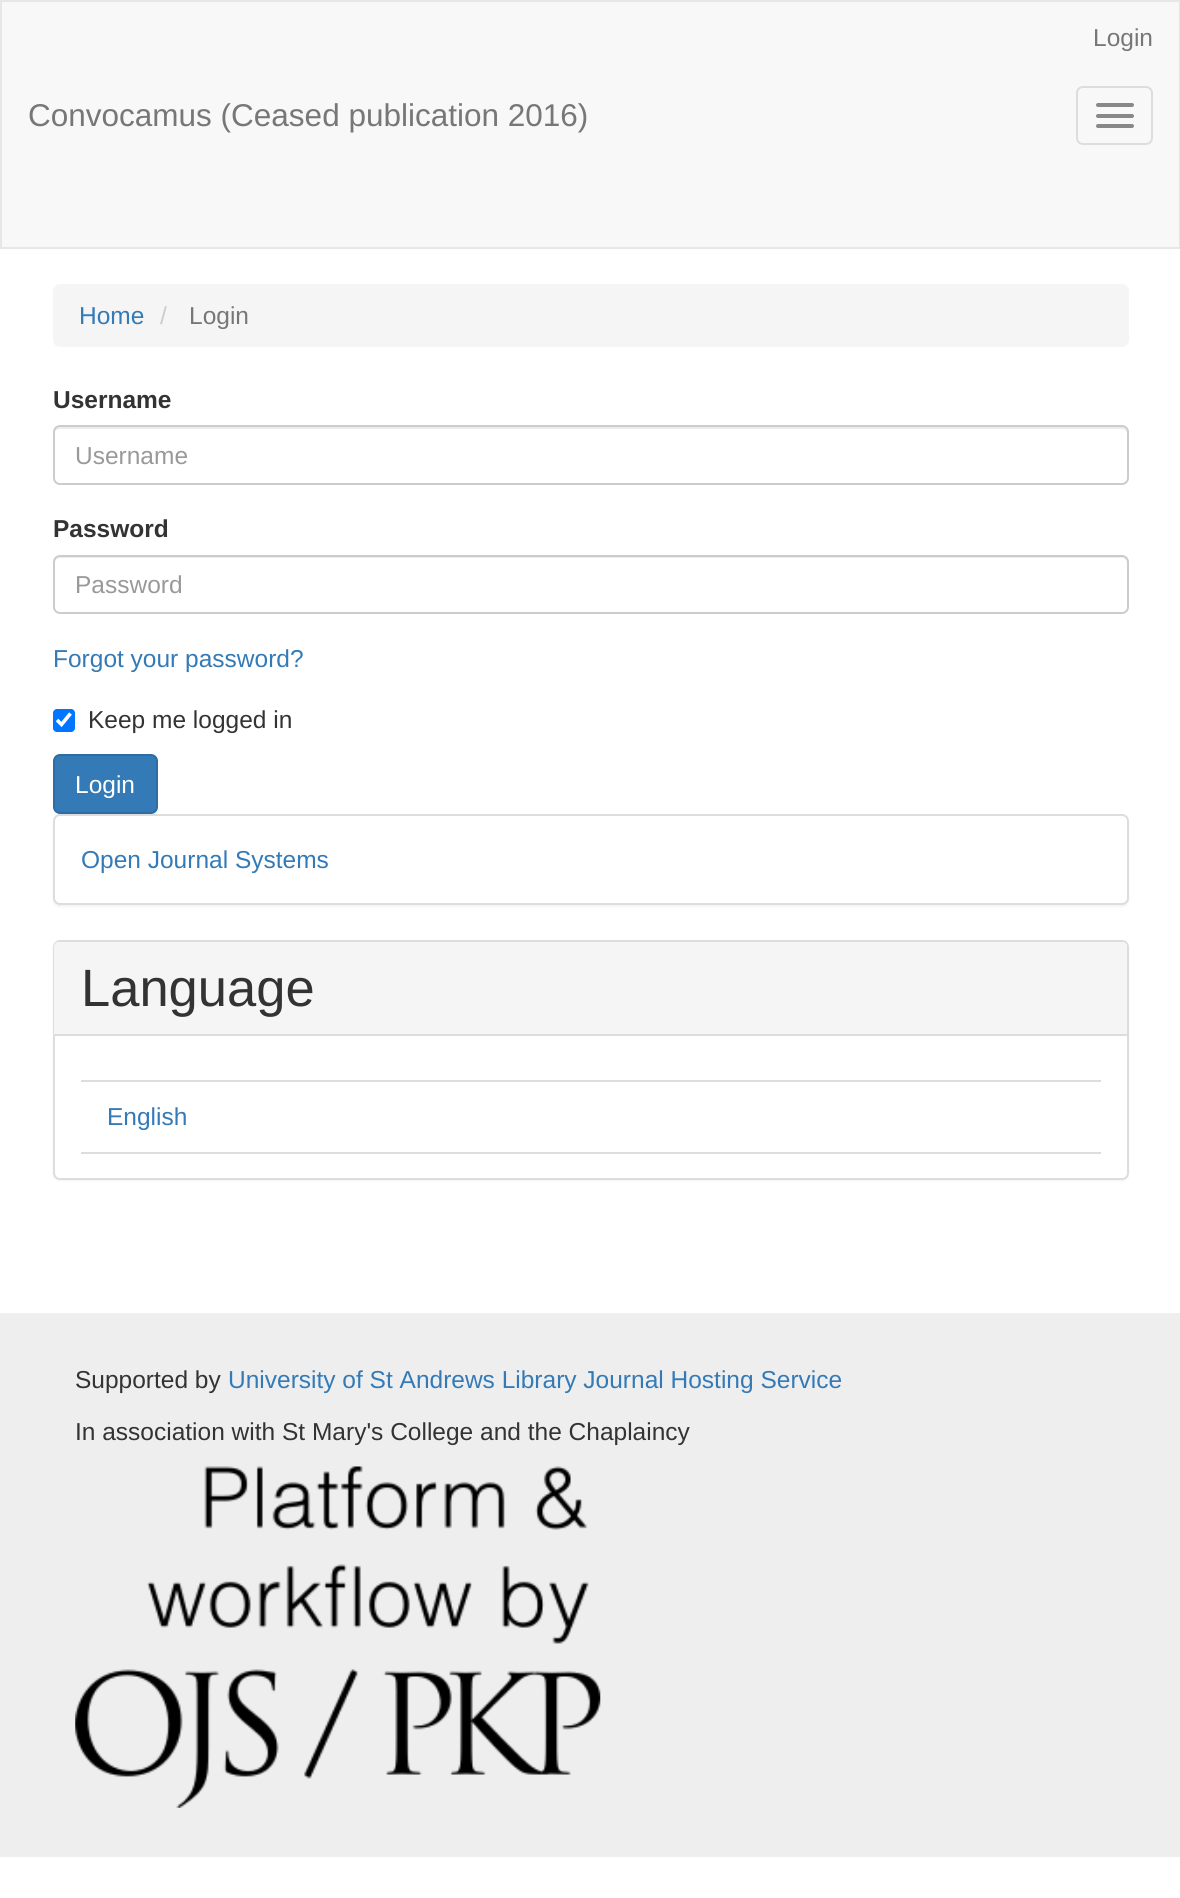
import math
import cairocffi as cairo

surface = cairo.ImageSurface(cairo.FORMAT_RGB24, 1180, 1898)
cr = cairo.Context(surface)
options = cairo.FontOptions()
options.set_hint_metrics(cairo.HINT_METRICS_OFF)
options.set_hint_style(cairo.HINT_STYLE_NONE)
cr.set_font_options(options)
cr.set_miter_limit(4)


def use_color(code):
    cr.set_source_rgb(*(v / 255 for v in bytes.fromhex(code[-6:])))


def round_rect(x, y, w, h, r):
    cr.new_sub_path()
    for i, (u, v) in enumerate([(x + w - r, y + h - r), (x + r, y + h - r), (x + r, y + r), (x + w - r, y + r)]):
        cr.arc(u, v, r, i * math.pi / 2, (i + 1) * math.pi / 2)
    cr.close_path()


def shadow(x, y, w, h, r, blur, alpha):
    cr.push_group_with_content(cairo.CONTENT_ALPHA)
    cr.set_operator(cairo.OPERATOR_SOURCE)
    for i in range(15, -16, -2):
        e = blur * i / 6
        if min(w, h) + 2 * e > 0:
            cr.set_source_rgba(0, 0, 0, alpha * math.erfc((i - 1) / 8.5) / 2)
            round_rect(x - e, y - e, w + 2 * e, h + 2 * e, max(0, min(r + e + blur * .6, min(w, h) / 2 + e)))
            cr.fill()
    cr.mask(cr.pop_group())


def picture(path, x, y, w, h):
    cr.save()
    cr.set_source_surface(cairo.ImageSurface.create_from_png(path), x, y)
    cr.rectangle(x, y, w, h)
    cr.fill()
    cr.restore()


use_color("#ffffff")
cr.paint()
use_color("#f8f8f8")
cr.rectangle(1, 1, 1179, 247)
cr.fill_preserve()
use_color("#e7e7e7")
cr.stroke()
cr.select_font_face("Liberation Sans")
cr.set_font_size(24.5)
use_color("#777777")
cr.move_to(1093, 46)
cr.show_text("Login")
cr.set_font_size(31.5)
cr.move_to(28, 126)
cr.show_text("Convocamus (Ceased publication 2016)")
round_rect(1077, 87, 75, 57, 6)
use_color("#dddddd")
cr.stroke()
use_color("#888888")
round_rect(1096, 103, 38, 4, 2)
cr.fill()
round_rect(1096, 114, 38, 4, 2)
cr.fill()
round_rect(1096, 124, 38, 4, 2)
cr.fill()
use_color("#f5f5f5")
round_rect(53, 284, 1076, 63, 7)
cr.fill()
cr.set_font_size(24.5)
use_color("#337ab7")
cr.move_to(79, 324)
cr.show_text("Home")
use_color("#cccccc")
cr.move_to(160, 324)
cr.show_text("/")
use_color("#777777")
cr.move_to(189, 324)
cr.show_text("Login")
cr.select_font_face("Liberation Sans", cairo.FONT_SLANT_NORMAL, cairo.FONT_WEIGHT_BOLD)
use_color("#333333")
cr.move_to(53, 408)
cr.show_text("Username")
use_color("#ececec")
cr.new_path()
cr.move_to(60, 429)
cr.line_to(1122, 429)
cr.curve_to(1125, 429, 1127, 431, 1127, 434)
cr.line_to(1127, 432)
cr.curve_to(1127, 429, 1125, 427, 1122, 427)
cr.line_to(59, 427)
cr.curve_to(56, 427, 54, 429, 54, 432)
cr.line_to(54, 434)
cr.curve_to(54, 431, 57, 429, 60, 429)
cr.close_path()
cr.fill()
round_rect(54, 426, 1074, 58, 6)
use_color("#cccccc")
cr.stroke()
cr.select_font_face("Liberation Sans")
use_color("#999999")
cr.move_to(75, 464)
cr.show_text("Username")
cr.select_font_face("Liberation Sans", cairo.FONT_SLANT_NORMAL, cairo.FONT_WEIGHT_BOLD)
use_color("#333333")
cr.move_to(53, 537)
cr.show_text("Password")
use_color("#ececec")
cr.new_path()
cr.move_to(60, 558)
cr.line_to(1122, 558)
cr.curve_to(1125, 558, 1127, 561, 1127, 564)
cr.line_to(1127, 562)
cr.curve_to(1127, 559, 1125, 557, 1122, 557)
cr.line_to(59, 557)
cr.curve_to(56, 557, 54, 559, 54, 562)
cr.line_to(54, 564)
cr.curve_to(54, 561, 57, 558, 60, 558)
cr.close_path()
cr.fill()
round_rect(54, 556, 1074, 57, 6)
use_color("#cccccc")
cr.stroke()
cr.select_font_face("Liberation Sans")
use_color("#999999")
cr.move_to(75, 593)
cr.show_text("Password")
use_color("#337ab7")
cr.move_to(53, 667)
cr.show_text("Forgot your password?")
use_color("#0075ff")
round_rect(53, 709, 22, 23, 4)
cr.fill()
cr.new_path()
cr.move_to(57, 720)
cr.line_to(61.5, 724.5)
cr.line_to(70.5, 713.5)
use_color("#ffffff")
cr.set_line_width(3.6)
cr.stroke()
use_color("#333333")
cr.move_to(88, 728)
cr.show_text("Keep me logged in")
use_color("#337ab7")
round_rect(54, 755, 103, 58, 6)
cr.fill_preserve()
use_color("#2e6da4")
cr.set_line_width(2)
cr.stroke()
use_color("#ffffff")
cr.move_to(75, 793)
cr.show_text("Login")
use_color("#000000")
shadow(53, 816, 1076, 91, 7, 1, 0.05)
use_color("#ffffff")
round_rect(54, 815, 1074, 89, 6)
cr.fill_preserve()
use_color("#dddddd")
cr.stroke()
use_color("#337ab7")
cr.move_to(81, 868)
cr.show_text("Open Journal Systems")
use_color("#000000")
shadow(53, 942, 1076, 239, 7, 1, 0.05)
use_color("#ffffff")
round_rect(54, 941, 1074, 238, 6)
cr.fill_preserve()
use_color("#dddddd")
cr.stroke()
use_color("#f5f5f5")
cr.new_path()
cr.move_to(59, 942)
cr.line_to(1122, 942)
cr.curve_to(1125, 942, 1127, 944, 1127, 947)
cr.line_to(1127, 1036)
cr.line_to(54, 1036)
cr.line_to(54, 947)
cr.curve_to(54, 944, 56, 942, 59, 942)
cr.close_path()
cr.fill()
use_color("#dddddd")
cr.rectangle(54, 1034, 1073, 2)
cr.fill()
cr.set_font_size(52.5)
use_color("#333333")
cr.move_to(81, 1006)
cr.show_text("Language")
use_color("#dddddd")
cr.rectangle(81, 1080, 1020, 2)
cr.fill()
cr.rectangle(81, 1152, 1020, 2)
cr.fill()
cr.set_font_size(24.5)
use_color("#337ab7")
cr.move_to(107, 1125)
cr.show_text("English")
use_color("#eeeeee")
cr.rectangle(0, 1313, 1180, 544)
cr.fill()
use_color("#333333")
cr.move_to(75, 1388)
cr.show_text("Supported by")
use_color("#337ab7")
cr.move_to(228, 1388)
cr.show_text("University of St Andrews Library Journal Hosting Service")
use_color("#333333")
cr.move_to(75, 1440)
cr.show_text("In association with St Mary's College and the Chaplaincy")
picture("img1.png", 75, 1466, 526, 342)
surface.write_to_png("result.png")
